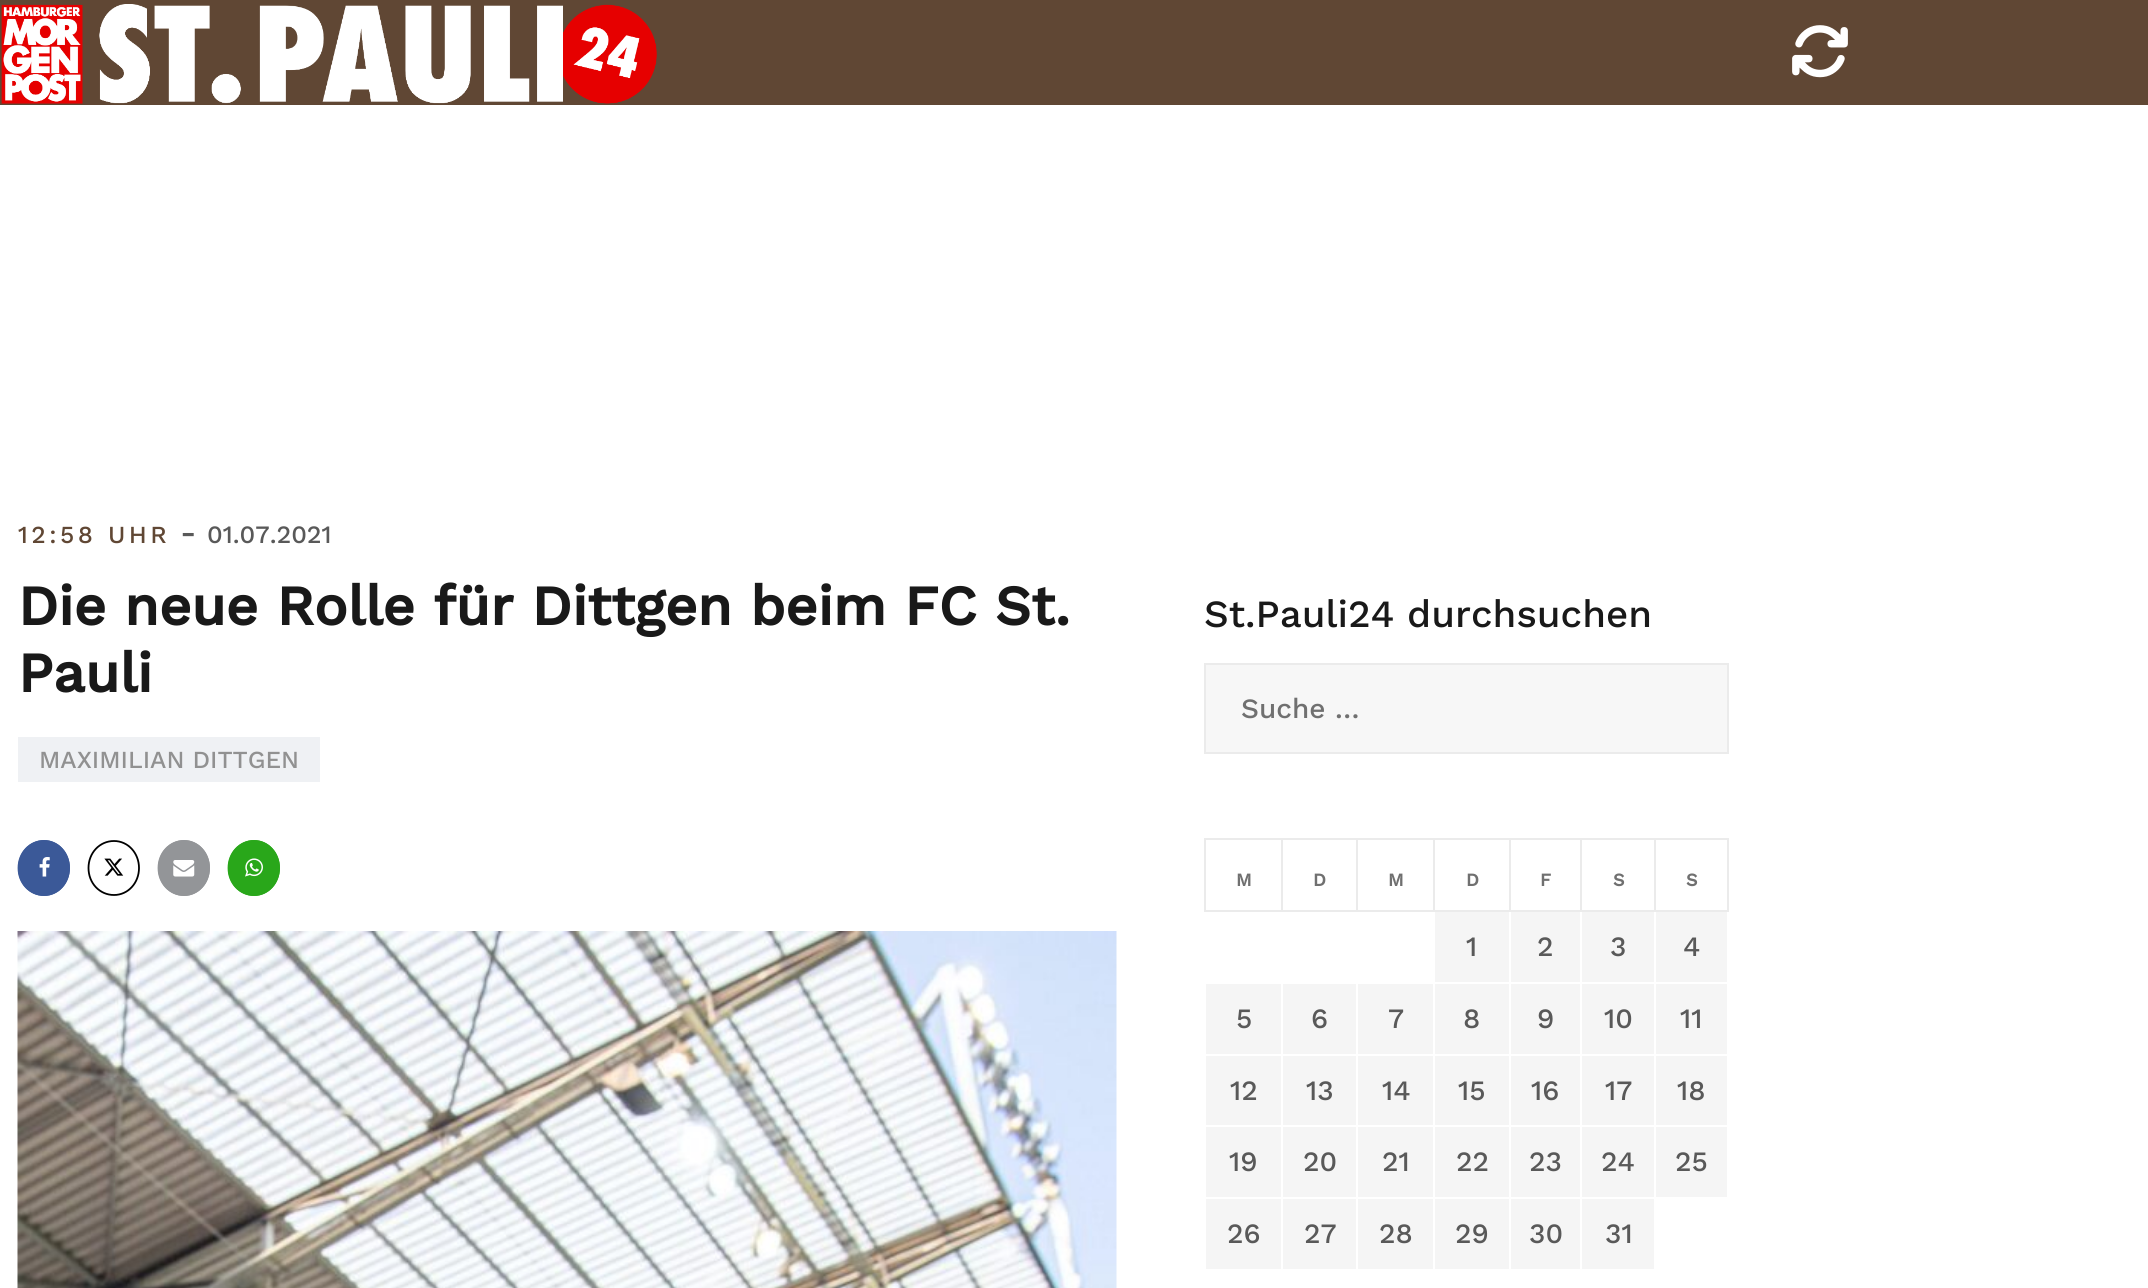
import math
import cairocffi as cairo

surface = cairo.ImageSurface(cairo.FORMAT_RGB24, 2148, 1288)
cr = cairo.Context(surface)
options = cairo.FontOptions()
options.set_hint_metrics(cairo.HINT_METRICS_OFF)
options.set_hint_style(cairo.HINT_STYLE_NONE)
cr.set_font_options(options)
cr.set_miter_limit(4)


def use_color(code):
    cr.set_source_rgb(*(v / 255 for v in bytes.fromhex(code[-6:])))


def spaced_text(x, y, s, letter, word):
    cr.move_to(x, y)
    for ch in s:
        cr.show_text(ch)
        cr.rel_move_to(letter + word * (ch == ' '), 0)


def picture(path, x, y, w, h):
    cr.save()
    cr.set_source_surface(cairo.ImageSurface.create_from_png(path), x, y)
    cr.rectangle(x, y, w, h)
    cr.fill()
    cr.restore()


use_color("#ffffff")
cr.paint()
use_color("#604734")
cr.rectangle(0, 0, 2148, 105)
cr.fill()
picture("img1.png", 1, 4, 656, 100)
picture("img2.png", 1792, 25, 56, 53)
cr.select_font_face("Work Sans Medium")
cr.set_font_size(24.5)
spaced_text(18, 543, "12:58 UHR", 3.5, 0)
cr.set_font_size(32)
use_color("#595959")
cr.move_to(180, 543)
cr.show_text("-")
cr.set_font_size(25)
cr.move_to(207, 543)
cr.show_text("01.07.2021")
cr.select_font_face("Work Sans", cairo.FONT_SLANT_NORMAL, cairo.FONT_WEIGHT_BOLD)
cr.set_font_size(56)
use_color("#191919")
cr.move_to(18, 625)
cr.show_text("Die neue Rolle für Dittgen beim FC St.")
cr.move_to(18, 692)
cr.show_text("Pauli")
use_color("#eff1f4")
cr.rectangle(18, 737, 302, 45)
cr.fill()
cr.select_font_face("Work Sans Medium")
cr.set_font_size(24.5)
use_color("#919191")
cr.move_to(39, 768)
cr.show_text("MAXIMILIAN DITTGEN")
use_color("#3b5998")
cr.new_path()
cr.move_to(44, 840)
cr.curve_to(58.5, 840, 70, 852.5, 70, 868)
cr.curve_to(70, 883.5, 58.5, 896, 44, 896)
cr.curve_to(29.5, 896, 18, 883.5, 18, 868)
cr.curve_to(18, 852.5, 29.5, 840, 44, 840)
cr.close_path()
cr.fill()
cr.new_path()
cr.move_to(44, 841)
cr.curve_to(58, 841, 69, 853, 69, 868)
cr.curve_to(69, 883, 58, 895, 44, 895)
cr.curve_to(29.5, 895, 18.5, 883, 18.5, 868)
cr.curve_to(18.5, 853, 29.5, 841, 44, 841)
cr.close_path()
cr.set_line_width(1.8)
cr.stroke()
picture("img3.png", 39, 857, 11, 20)
cr.new_path()
cr.move_to(114, 841)
cr.curve_to(128, 841, 139, 853, 139, 868)
cr.curve_to(139, 883, 128, 895, 114, 895)
cr.curve_to(99.5, 895, 88.5, 883, 88.5, 868)
cr.curve_to(88.5, 853, 99.5, 841, 114, 841)
cr.close_path()
use_color("#000000")
cr.stroke()
picture("img4.png", 104, 858, 20, 18)
use_color("#939598")
cr.new_path()
cr.move_to(184, 840)
cr.curve_to(198.5, 840, 210, 852.5, 210, 868)
cr.curve_to(210, 883.5, 198.5, 896, 184, 896)
cr.curve_to(169.5, 896, 158, 883.5, 158, 868)
cr.curve_to(158, 852.5, 169.5, 840, 184, 840)
cr.close_path()
cr.fill()
cr.new_path()
cr.move_to(184, 841)
cr.curve_to(198, 841, 209, 853, 209, 868)
cr.curve_to(209, 883, 198, 895, 184, 895)
cr.curve_to(169.5, 895, 158.5, 883, 158.5, 868)
cr.curve_to(158.5, 853, 169.5, 841, 184, 841)
cr.close_path()
cr.stroke()
picture("img5.png", 173, 860, 22, 17)
use_color("#29a71a")
cr.new_path()
cr.move_to(254, 840)
cr.curve_to(268.5, 840, 280, 852.5, 280, 868)
cr.curve_to(280, 883.5, 268.5, 896, 254, 896)
cr.curve_to(239.5, 896, 228, 883.5, 228, 868)
cr.curve_to(228, 852.5, 239.5, 840, 254, 840)
cr.close_path()
cr.fill()
cr.new_path()
cr.move_to(254, 841)
cr.curve_to(268, 841, 279, 853, 279, 868)
cr.curve_to(279, 883, 268, 895, 254, 895)
cr.curve_to(239.5, 895, 228.5, 883, 228.5, 868)
cr.curve_to(228.5, 853, 239.5, 841, 254, 841)
cr.close_path()
cr.stroke()
picture("img6.png", 245, 858, 18, 19)
picture("img7.png", 17, 931, 1100, 357)
cr.set_font_size(38.5)
use_color("#191919")
cr.move_to(1204, 627)
cr.show_text("St.Pauli24 durchsuchen")
use_color("#f7f7f7")
cr.rectangle(1205, 664, 523, 89)
cr.fill_preserve()
use_color("#ebebeb")
cr.set_line_width(2)
cr.stroke()
cr.set_font_size(28)
use_color("#707070")
cr.move_to(1241, 718)
cr.show_text("Suche …")
use_color("#ebebeb")
cr.rectangle(1654, 838, 75, 2)
cr.fill()
cr.rectangle(1727, 838, 2, 74)
cr.fill()
cr.rectangle(1654, 910, 75, 2)
cr.fill()
cr.rectangle(1654, 838, 2, 74)
cr.fill()
cr.rectangle(1580, 838, 76, 2)
cr.fill()
cr.rectangle(1580, 910, 76, 2)
cr.fill()
cr.rectangle(1580, 838, 2, 74)
cr.fill()
cr.rectangle(1509, 838, 73, 2)
cr.fill()
cr.rectangle(1509, 910, 73, 2)
cr.fill()
cr.rectangle(1509, 838, 2, 74)
cr.fill()
cr.rectangle(1433, 838, 77, 2)
cr.fill()
cr.rectangle(1433, 910, 77, 2)
cr.fill()
cr.rectangle(1433, 838, 2, 74)
cr.fill()
cr.rectangle(1356, 838, 79, 2)
cr.fill()
cr.rectangle(1356, 910, 79, 2)
cr.fill()
cr.rectangle(1356, 838, 2, 74)
cr.fill()
cr.rectangle(1281, 838, 77, 2)
cr.fill()
cr.rectangle(1281, 910, 77, 2)
cr.fill()
cr.rectangle(1281, 838, 2, 74)
cr.fill()
cr.rectangle(1204, 838, 79, 2)
cr.fill()
cr.rectangle(1204, 910, 79, 2)
cr.fill()
cr.rectangle(1204, 838, 2, 74)
cr.fill()
cr.select_font_face("Work Sans", cairo.FONT_SLANT_NORMAL, cairo.FONT_WEIGHT_BOLD)
cr.set_font_size(18)
use_color("#707070")
cr.move_to(1236, 886)
cr.show_text("M")
cr.move_to(1313, 886)
cr.show_text("D")
cr.move_to(1388, 886)
cr.show_text("M")
cr.move_to(1466, 886)
cr.show_text("D")
cr.move_to(1540, 886)
cr.show_text("F")
cr.move_to(1613, 886)
cr.show_text("S")
cr.move_to(1686, 886)
cr.show_text("S")
use_color("#f5f5f5")
cr.rectangle(1435, 912, 74, 70)
cr.fill()
cr.select_font_face("Work Sans Medium")
cr.set_font_size(28)
use_color("#595959")
cr.move_to(1466, 956)
cr.show_text("1")
use_color("#f5f5f5")
cr.rectangle(1511, 912, 69, 70)
cr.fill()
use_color("#595959")
cr.move_to(1537, 956)
cr.show_text("2")
use_color("#f5f5f5")
cr.rectangle(1582, 912, 72, 70)
cr.fill()
use_color("#595959")
cr.move_to(1610, 956)
cr.show_text("3")
use_color("#f5f5f5")
cr.rectangle(1656, 912, 71, 70)
cr.fill()
use_color("#595959")
cr.move_to(1683, 956)
cr.show_text("4")
use_color("#f5f5f5")
cr.rectangle(1206, 984, 75, 70)
cr.fill()
use_color("#595959")
cr.move_to(1236, 1028)
cr.show_text("5")
use_color("#f5f5f5")
cr.rectangle(1283, 984, 73, 70)
cr.fill()
use_color("#595959")
cr.move_to(1311, 1028)
cr.show_text("6")
use_color("#f5f5f5")
cr.rectangle(1358, 984, 75, 70)
cr.fill()
use_color("#595959")
cr.move_to(1388, 1028)
cr.show_text("7")
use_color("#f5f5f5")
cr.rectangle(1435, 984, 74, 70)
cr.fill()
use_color("#595959")
cr.move_to(1463, 1028)
cr.show_text("8")
use_color("#f5f5f5")
cr.rectangle(1511, 984, 69, 70)
cr.fill()
use_color("#595959")
cr.move_to(1537, 1028)
cr.show_text("9")
use_color("#f5f5f5")
cr.rectangle(1582, 984, 72, 70)
cr.fill()
use_color("#595959")
cr.move_to(1604, 1028)
cr.show_text("10")
use_color("#f5f5f5")
cr.rectangle(1656, 984, 71, 70)
cr.fill()
use_color("#595959")
cr.move_to(1680, 1028)
cr.show_text("11")
use_color("#f5f5f5")
cr.rectangle(1206, 1056, 75, 69)
cr.fill()
use_color("#595959")
cr.move_to(1230, 1100)
cr.show_text("12")
use_color("#f5f5f5")
cr.rectangle(1283, 1056, 73, 69)
cr.fill()
use_color("#595959")
cr.move_to(1306, 1100)
cr.show_text("13")
use_color("#f5f5f5")
cr.rectangle(1358, 1056, 75, 69)
cr.fill()
use_color("#595959")
cr.move_to(1382, 1100)
cr.show_text("14")
use_color("#f5f5f5")
cr.rectangle(1435, 1056, 74, 69)
cr.fill()
use_color("#595959")
cr.move_to(1458, 1100)
cr.show_text("15")
use_color("#f5f5f5")
cr.rectangle(1511, 1056, 69, 69)
cr.fill()
use_color("#595959")
cr.move_to(1531, 1100)
cr.show_text("16")
use_color("#f5f5f5")
cr.rectangle(1582, 1056, 72, 69)
cr.fill()
use_color("#595959")
cr.move_to(1605, 1100)
cr.show_text("17")
use_color("#f5f5f5")
cr.rectangle(1656, 1056, 71, 69)
cr.fill()
use_color("#595959")
cr.move_to(1677, 1100)
cr.show_text("18")
use_color("#f5f5f5")
cr.rectangle(1206, 1127, 75, 70)
cr.fill()
use_color("#595959")
cr.move_to(1229, 1171)
cr.show_text("19")
use_color("#f5f5f5")
cr.rectangle(1283, 1127, 73, 70)
cr.fill()
use_color("#595959")
cr.move_to(1303, 1171)
cr.show_text("20")
use_color("#f5f5f5")
cr.rectangle(1358, 1127, 75, 70)
cr.fill()
use_color("#595959")
cr.move_to(1382, 1171)
cr.show_text("21")
use_color("#f5f5f5")
cr.rectangle(1435, 1127, 74, 70)
cr.fill()
use_color("#595959")
cr.move_to(1456, 1171)
cr.show_text("22")
use_color("#f5f5f5")
cr.rectangle(1511, 1127, 69, 70)
cr.fill()
use_color("#595959")
cr.move_to(1529, 1171)
cr.show_text("23")
use_color("#f5f5f5")
cr.rectangle(1582, 1127, 72, 70)
cr.fill()
use_color("#595959")
cr.move_to(1601, 1171)
cr.show_text("24")
use_color("#f5f5f5")
cr.rectangle(1656, 1127, 71, 70)
cr.fill()
use_color("#595959")
cr.move_to(1675, 1171)
cr.show_text("25")
use_color("#f5f5f5")
cr.rectangle(1206, 1199, 75, 70)
cr.fill()
use_color("#595959")
cr.move_to(1227, 1243)
cr.show_text("26")
use_color("#f5f5f5")
cr.rectangle(1283, 1199, 73, 70)
cr.fill()
use_color("#595959")
cr.move_to(1304, 1243)
cr.show_text("27")
use_color("#f5f5f5")
cr.rectangle(1358, 1199, 75, 70)
cr.fill()
use_color("#595959")
cr.move_to(1379, 1243)
cr.show_text("28")
use_color("#f5f5f5")
cr.rectangle(1435, 1199, 74, 70)
cr.fill()
use_color("#595959")
cr.move_to(1455, 1243)
cr.show_text("29")
use_color("#f5f5f5")
cr.rectangle(1511, 1199, 69, 70)
cr.fill()
use_color("#595959")
cr.move_to(1529, 1243)
cr.show_text("30")
use_color("#f5f5f5")
cr.rectangle(1582, 1199, 72, 70)
cr.fill()
use_color("#595959")
cr.move_to(1605, 1243)
cr.show_text("31")
surface.write_to_png("result.png")
